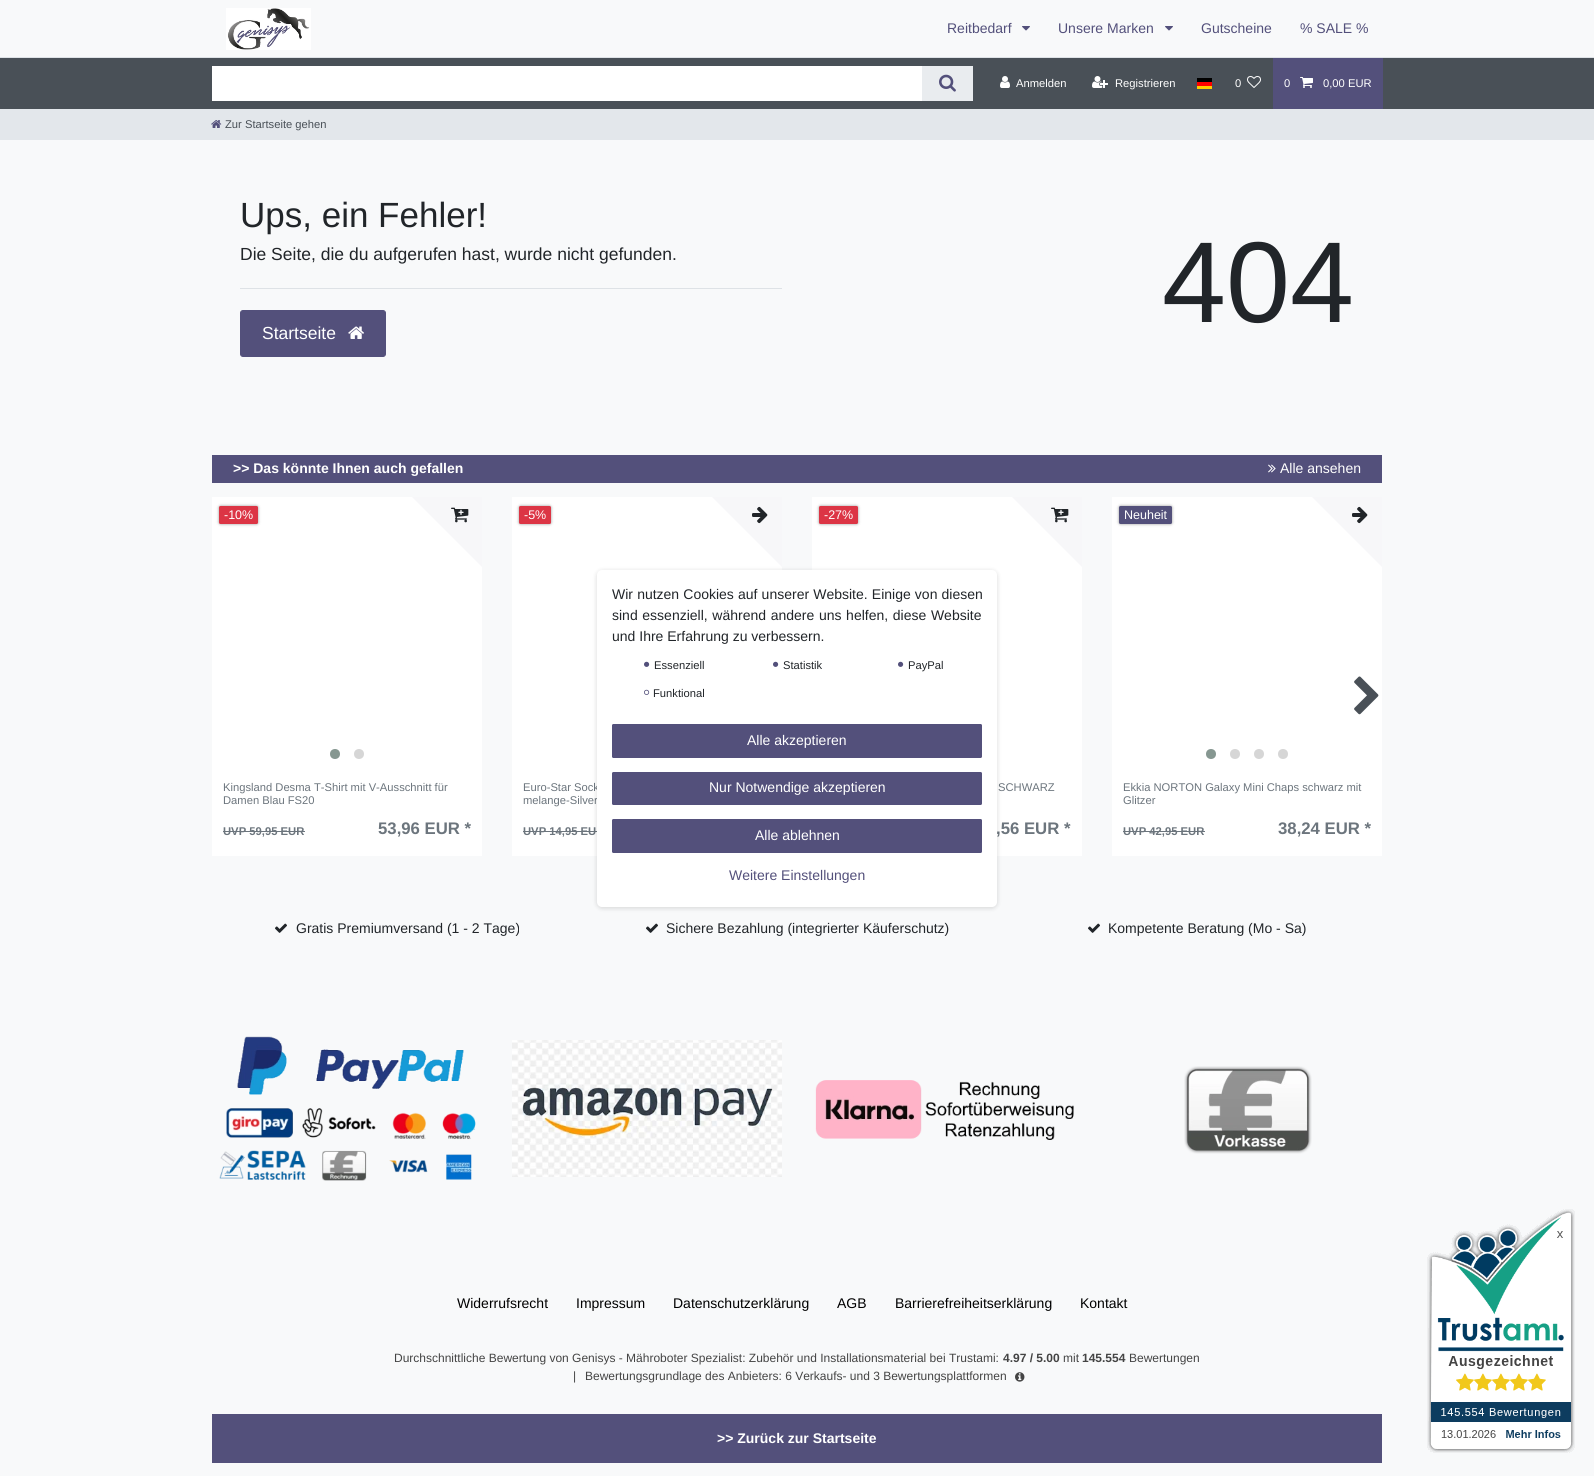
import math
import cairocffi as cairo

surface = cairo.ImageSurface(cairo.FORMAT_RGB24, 1594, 1476)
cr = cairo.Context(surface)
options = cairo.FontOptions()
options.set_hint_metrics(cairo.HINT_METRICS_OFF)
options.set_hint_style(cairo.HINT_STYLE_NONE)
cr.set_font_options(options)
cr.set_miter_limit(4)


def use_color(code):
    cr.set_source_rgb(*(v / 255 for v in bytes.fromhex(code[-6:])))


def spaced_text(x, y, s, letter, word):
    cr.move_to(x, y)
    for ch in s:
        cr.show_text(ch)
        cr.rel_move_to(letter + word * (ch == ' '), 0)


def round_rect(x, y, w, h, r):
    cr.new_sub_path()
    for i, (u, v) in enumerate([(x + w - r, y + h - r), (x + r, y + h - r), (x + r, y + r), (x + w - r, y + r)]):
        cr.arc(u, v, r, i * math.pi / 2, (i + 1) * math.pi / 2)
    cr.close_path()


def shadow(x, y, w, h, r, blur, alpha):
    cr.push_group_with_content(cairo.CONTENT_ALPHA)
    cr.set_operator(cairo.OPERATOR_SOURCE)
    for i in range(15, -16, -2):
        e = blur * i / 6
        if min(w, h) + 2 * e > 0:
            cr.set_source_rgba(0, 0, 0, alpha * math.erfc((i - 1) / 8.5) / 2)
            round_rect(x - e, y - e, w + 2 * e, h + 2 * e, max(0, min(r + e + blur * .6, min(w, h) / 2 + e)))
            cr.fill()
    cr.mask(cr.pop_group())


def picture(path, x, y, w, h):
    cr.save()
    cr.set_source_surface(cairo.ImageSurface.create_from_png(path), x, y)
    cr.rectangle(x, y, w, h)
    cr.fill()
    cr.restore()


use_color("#f8f9fa")
cr.paint()
use_color("#dee2e6")
cr.rectangle(0, 57, 1594, 1)
cr.fill()
picture("img1.png", 226, 8, 85, 42)
cr.select_font_face("Liberation Sans")
cr.set_font_size(14)
use_color("#53507b")
cr.move_to(947, 33)
cr.show_text("Reitbedarf")
picture("img2.png", 1022, 26, 8, 5)
cr.move_to(1058, 33)
cr.show_text("Unsere Marken")
picture("img2.png", 1165, 26, 8, 5)
cr.move_to(1201, 33)
cr.show_text("Gutscheine")
cr.move_to(1300, 33)
cr.show_text("% SALE %")
use_color("#495057")
cr.rectangle(0, 58, 1594, 51)
cr.fill()
use_color("#ffffff")
cr.rectangle(212, 66, 710, 35)
cr.fill()
use_color("#e9ecef")
cr.rectangle(922, 66, 51, 35)
cr.fill()
picture("img3.png", 939, 74, 17, 18)
picture("img4.png", 1000, 76, 10, 12)
cr.set_font_size(11.2)
use_color("#ffffff")
cr.move_to(1016, 87)
cr.show_text("Anmelden")
picture("img5.png", 1092, 76, 16, 12)
cr.move_to(1115, 87)
cr.show_text("Registrieren")
use_color("#ffcc00")
cr.rectangle(1197, 86, 15, 3)
cr.fill()
use_color("#000000")
cr.rectangle(1197, 78, 15, 4)
cr.fill()
use_color("#ff0000")
cr.rectangle(1197, 82, 15, 4)
cr.fill()
use_color("#ffffff")
cr.move_to(1235, 87)
cr.show_text("0")
picture("img6.png", 1247, 76, 14, 12)
use_color("#53507b")
cr.rectangle(1273, 58, 110, 51)
cr.fill()
use_color("#ffffff")
cr.move_to(1284, 87)
cr.show_text("0")
picture("img7.png", 1300, 77, 13, 11)
cr.move_to(1323, 87)
cr.show_text("0,00 EUR")
use_color("#e3e7eb")
cr.rectangle(0, 109, 1594, 31)
cr.fill()
picture("img8.png", 211, 120, 11, 8)
use_color("#495057")
cr.move_to(225, 128)
cr.show_text("Zur Startseite gehen")
cr.set_font_size(35)
use_color("#212529")
cr.move_to(240, 227)
cr.show_text("Ups, ein Fehler!")
cr.set_font_size(17.5)
cr.move_to(240, 260)
cr.show_text("Die Seite, die du aufgerufen hast, wurde nicht gefunden.")
use_color("#dee2e6")
cr.rectangle(240, 288, 542, 1)
cr.fill()
use_color("#53507b")
round_rect(240.5, 310.5, 145, 46, 2.5)
cr.fill_preserve()
cr.set_line_width(1)
cr.stroke()
use_color("#ffffff")
cr.move_to(262, 339)
cr.show_text("Startseite")
picture("img9.png", 348, 326, 16, 13)
cr.set_font_size(115)
use_color("#212529")
cr.move_to(1162, 322)
cr.show_text("404")
use_color("#53507b")
cr.rectangle(212, 455, 1170, 28)
cr.fill()
cr.select_font_face("Liberation Sans", cairo.FONT_SLANT_NORMAL, cairo.FONT_WEIGHT_BOLD)
cr.set_font_size(14)
use_color("#ffffff")
cr.move_to(233, 473)
cr.show_text(">> Das könnte Ihnen auch gefallen")
picture("img10.png", 1268, 464, 8, 9)
cr.select_font_face("Liberation Sans")
cr.move_to(1280, 473)
cr.show_text("Alle ansehen")
cr.rectangle(212, 497, 270, 359)
cr.fill()
use_color("#000000")
shadow(219, 506, 39, 18, 1.5, 1.5, 0.4)
use_color("#dc3545")
round_rect(219, 506, 39, 18, 1.5)
cr.fill()
cr.set_font_size(12.5)
use_color("#ffffff")
cr.move_to(224, 519)
cr.show_text("-10%")
use_color("#f7f7f9")
cr.new_path()
cr.move_to(482, 497)
cr.line_to(482, 567)
cr.line_to(412, 497)
cr.close_path()
cr.fill()
picture("img11.png", 451, 507, 18, 16)
use_color("#869791")
cr.arc(335, 754, 5, 0, 2 * math.pi)
cr.fill()
use_color("#d6d6d6")
cr.arc(359, 754, 5, 0, 2 * math.pi)
cr.fill()
cr.set_font_size(11.2)
use_color("#6c757d")
cr.move_to(223, 791)
cr.show_text("Kingsland Desma T-Shirt mit V-Ausschnitt für")
cr.move_to(223, 804)
cr.show_text("Damen Blau FS20")
cr.select_font_face("Liberation Sans", cairo.FONT_SLANT_NORMAL, cairo.FONT_WEIGHT_BOLD)
cr.set_font_size(11.25)
cr.move_to(223, 835)
cr.show_text("UVP 59,95 EUR")
cr.rectangle(223, 831, 82, 1)
cr.fill()
cr.set_font_size(16.75)
cr.move_to(378, 834)
cr.show_text("53,96 EUR *")
use_color("#ffffff")
cr.rectangle(512, 497, 270, 359)
cr.fill()
use_color("#000000")
shadow(519, 506, 32, 18, 1.5, 1.5, 0.4)
use_color("#dc3545")
round_rect(519, 506, 32, 18, 1.5)
cr.fill()
cr.select_font_face("Liberation Sans")
cr.set_font_size(12.5)
use_color("#ffffff")
cr.move_to(524, 519)
cr.show_text("-5%")
use_color("#f7f7f9")
cr.new_path()
cr.move_to(782, 497)
cr.line_to(782, 567)
cr.line_to(712, 497)
cr.close_path()
cr.fill()
picture("img12.png", 752, 506, 16, 18)
cr.set_font_size(11.2)
use_color("#6c757d")
cr.move_to(523, 791)
cr.show_text("Euro-Star Sock")
cr.move_to(523, 804)
cr.show_text("melange-Silver")
cr.select_font_face("Liberation Sans", cairo.FONT_SLANT_NORMAL, cairo.FONT_WEIGHT_BOLD)
cr.set_font_size(11.25)
cr.move_to(523, 835)
cr.show_text("UVP 14,95 EU")
cr.rectangle(523, 831, 82, 1)
cr.fill()
use_color("#ffffff")
cr.rectangle(812, 497, 270, 359)
cr.fill()
use_color("#000000")
shadow(819, 506, 39, 18, 1.5, 1.5, 0.4)
use_color("#dc3545")
round_rect(819, 506, 39, 18, 1.5)
cr.fill()
cr.select_font_face("Liberation Sans")
cr.set_font_size(12.5)
use_color("#ffffff")
cr.move_to(824, 519)
cr.show_text("-27%")
use_color("#f7f7f9")
cr.new_path()
cr.move_to(1082, 497)
cr.line_to(1082, 567)
cr.line_to(1012, 497)
cr.close_path()
cr.fill()
picture("img11.png", 1051, 507, 18, 16)
cr.set_font_size(11.2)
use_color("#6c757d")
cr.move_to(998, 791)
cr.show_text("SCHWARZ")
cr.select_font_face("Liberation Sans", cairo.FONT_SLANT_NORMAL, cairo.FONT_WEIGHT_BOLD)
cr.set_font_size(16.75)
cr.move_to(996, 834)
cr.show_text(",56 EUR *")
use_color("#ffffff")
cr.rectangle(1112, 497, 270, 359)
cr.fill()
use_color("#000000")
shadow(1119, 506, 53, 18, 1.5, 1.5, 0.4)
use_color("#53507b")
round_rect(1119, 506, 53, 18, 1.5)
cr.fill()
cr.select_font_face("Liberation Sans")
cr.set_font_size(12.5)
use_color("#ffffff")
cr.move_to(1124, 519)
cr.show_text("Neuheit")
use_color("#f7f7f9")
cr.new_path()
cr.move_to(1382, 497)
cr.line_to(1382, 567)
cr.line_to(1312, 497)
cr.close_path()
cr.fill()
picture("img12.png", 1352, 506, 16, 18)
use_color("#869791")
cr.arc(1211, 754, 5, 0, 2 * math.pi)
cr.fill()
use_color("#d6d6d6")
cr.arc(1235, 754, 5, 0, 2 * math.pi)
cr.fill()
cr.arc(1259, 754, 5, 0, 2 * math.pi)
cr.fill()
cr.arc(1283, 754, 5, 0, 2 * math.pi)
cr.fill()
cr.set_font_size(11.2)
use_color("#6c757d")
cr.move_to(1123, 791)
cr.show_text("Ekkia NORTON Galaxy Mini Chaps schwarz mit")
cr.move_to(1123, 804)
cr.show_text("Glitzer")
cr.select_font_face("Liberation Sans", cairo.FONT_SLANT_NORMAL, cairo.FONT_WEIGHT_BOLD)
cr.set_font_size(11.25)
cr.move_to(1123, 835)
cr.show_text("UVP 42,95 EUR")
cr.rectangle(1123, 831, 82, 1)
cr.fill()
cr.set_font_size(16.75)
cr.move_to(1278, 834)
cr.show_text("38,24 EUR *")
picture("img13.png", 1354, 676, 25, 39)
picture("img14.png", 275, 923, 12, 10)
cr.select_font_face("Liberation Sans")
cr.set_font_size(14)
use_color("#212529")
cr.move_to(296, 933)
cr.show_text("Gratis Premiumversand (1 - 2 Tage)")
picture("img14.png", 646, 923, 12, 10)
cr.move_to(666, 933)
cr.show_text("Sichere Bezahlung (integrierter Käuferschutz)")
picture("img14.png", 1088, 923, 12, 10)
cr.move_to(1108, 933)
cr.show_text("Kompetente Beratung (Mo - Sa)")
picture("img15.png", 219, 1036, 257, 145)
picture("img16.png", 512, 1040, 270, 137)
picture("img17.png", 815, 1080, 259, 60)
picture("img18.png", 1184, 1066, 128, 88)
use_color("#000000")
cr.move_to(457, 1308)
cr.show_text("Widerrufsrecht")
cr.move_to(576, 1308)
cr.show_text("Impressum")
cr.move_to(673, 1308)
cr.show_text("Datenschutzerklärung")
cr.move_to(837, 1308)
cr.show_text("AGB")
cr.move_to(895, 1308)
cr.show_text("Barrierefreiheitserklärung")
cr.move_to(1080, 1308)
cr.show_text("Kontakt")
cr.set_font_size(12)
use_color("#444444")
cr.move_to(394, 1362)
cr.show_text("Durchschnittliche Bewertung von Genisys - Mähroboter Spezialist: Zubehör und Installationsmaterial bei Trustami:")
cr.select_font_face("Liberation Sans", cairo.FONT_SLANT_NORMAL, cairo.FONT_WEIGHT_BOLD)
cr.move_to(1003, 1362)
cr.show_text("4.97 / 5.00")
cr.select_font_face("Liberation Sans")
cr.move_to(1063, 1362)
cr.show_text("mit")
cr.select_font_face("Liberation Sans", cairo.FONT_SLANT_NORMAL, cairo.FONT_WEIGHT_BOLD)
cr.move_to(1082, 1362)
cr.show_text("145.554")
cr.select_font_face("Liberation Sans")
cr.move_to(1129, 1362)
cr.show_text("Bewertungen")
cr.move_to(573, 1380)
cr.show_text("|")
cr.move_to(585, 1380)
cr.show_text("Bewertungsgrundlage des Anbieters: 6 Verkaufs- und 3 Bewertungsplattformen")
picture("img19.png", 1015, 1372, 10, 10)
use_color("#53507b")
cr.rectangle(212, 1414, 1170, 49)
cr.fill()
cr.select_font_face("Liberation Sans", cairo.FONT_SLANT_NORMAL, cairo.FONT_WEIGHT_BOLD)
cr.set_font_size(14)
use_color("#ffffff")
cr.move_to(717, 1443)
cr.show_text(">> Zurück zur Startseite")
use_color("#000000")
shadow(597, 571, 400, 337, 5, 2.5, 0.15)
use_color("#ffffff")
round_rect(597, 570, 400, 337, 5)
cr.fill()
cr.select_font_face("Liberation Sans")
use_color("#212529")
spaced_text(612, 599, "Wir nutzen Cookies auf unserer Website. Einige von diesen", 0, 0.25)
spaced_text(612, 620, "sind essenziell, während andere uns helfen, diese Website", 0, 0.75)
cr.move_to(612, 641)
cr.show_text("und Ihre Erfahrung zu verbessern.")
picture("img20.png", 644, 661, 6, 6)
cr.set_font_size(11.2)
cr.move_to(654, 669)
cr.show_text("Essenziell")
picture("img20.png", 773, 661, 6, 6)
cr.move_to(783, 669)
cr.show_text("Statistik")
picture("img20.png", 898, 661, 6, 6)
cr.move_to(908, 669)
cr.show_text("PayPal")
picture("img21.png", 644, 689, 6, 6)
cr.move_to(653, 697)
cr.show_text("Funktional")
use_color("#53507b")
round_rect(612.5, 724.5, 369, 33, 1)
cr.fill_preserve()
cr.stroke()
cr.set_font_size(14)
use_color("#ffffff")
cr.move_to(747, 745)
cr.show_text("Alle akzeptieren")
use_color("#53507b")
round_rect(612.5, 772.5, 369, 32, 1)
cr.fill_preserve()
cr.stroke()
use_color("#ffffff")
cr.move_to(709, 792)
cr.show_text("Nur Notwendige akzeptieren")
use_color("#53507b")
round_rect(612.5, 819.5, 369, 33, 1)
cr.fill_preserve()
cr.stroke()
use_color("#ffffff")
cr.move_to(755, 840)
cr.show_text("Alle ablehnen")
use_color("#53507b")
cr.move_to(729, 880)
cr.show_text("Weitere Einstellungen")
picture("img22.png", 1427, 1209, 148, 244)
surface.write_to_png("result.png")
